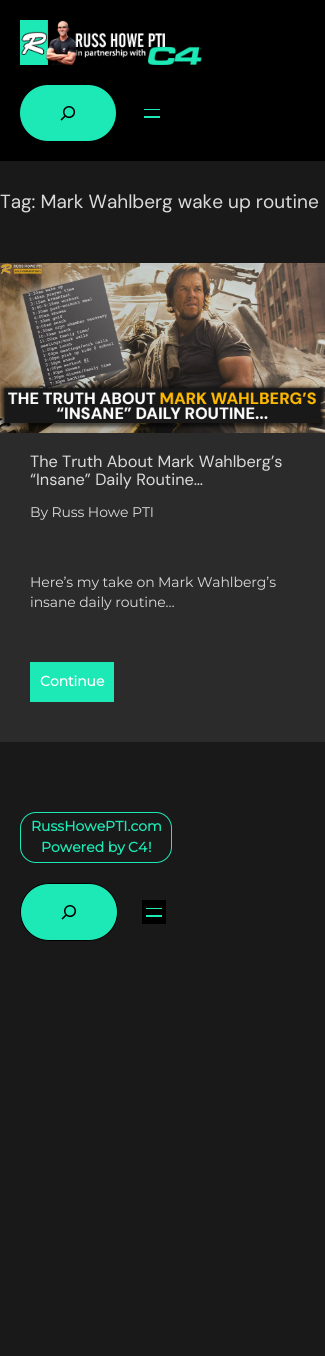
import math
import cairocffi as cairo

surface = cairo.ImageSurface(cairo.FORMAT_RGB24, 325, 1356)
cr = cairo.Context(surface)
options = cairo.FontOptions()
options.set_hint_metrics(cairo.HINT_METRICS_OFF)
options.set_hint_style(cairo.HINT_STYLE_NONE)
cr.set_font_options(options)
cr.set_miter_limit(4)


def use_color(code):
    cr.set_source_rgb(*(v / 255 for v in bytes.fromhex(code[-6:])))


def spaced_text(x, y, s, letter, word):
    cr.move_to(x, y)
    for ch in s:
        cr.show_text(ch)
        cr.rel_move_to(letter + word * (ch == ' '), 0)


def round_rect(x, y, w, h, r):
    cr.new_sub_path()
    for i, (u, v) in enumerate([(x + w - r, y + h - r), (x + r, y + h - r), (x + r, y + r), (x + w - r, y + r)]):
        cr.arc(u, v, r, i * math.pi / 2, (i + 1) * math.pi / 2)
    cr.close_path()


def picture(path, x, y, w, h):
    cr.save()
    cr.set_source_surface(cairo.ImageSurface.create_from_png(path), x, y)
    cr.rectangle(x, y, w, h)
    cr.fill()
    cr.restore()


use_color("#191919")
cr.paint()
use_color("#000000")
cr.rectangle(0, 0, 325, 161)
cr.fill()
picture("img1.png", 20, 20, 182, 45)
use_color("#1de9b6")
round_rect(20, 85, 96, 56, 28)
cr.fill()
picture("img2.png", 60, 106, 16, 15)
cr.rectangle(144, 109, 16, 1)
cr.fill()
cr.rectangle(144, 116, 16, 2)
cr.fill()
cr.select_font_face("DM Sans")
cr.set_font_size(19)
use_color("#dbdbdb")
cr.move_to(0, 208)
cr.show_text("Tag: Mark Wahlberg wake up routine")
picture("img3.png", 0, 263, 325, 170)
use_color("#2b2b2b")
cr.rectangle(0, 433, 325, 309)
cr.fill()
cr.set_font_size(16.3)
use_color("#dbdbdb")
cr.move_to(30, 467)
cr.show_text("The Truth About Mark Wahlberg’s")
cr.move_to(30, 485)
cr.show_text("“Insane” Daily Routine…")
cr.select_font_face("Montserrat")
cr.set_font_size(14)
spaced_text(30, 517, "By Russ Howe PTI", -0.1, 0)
spaced_text(30, 587, "Here’s my take on Mark Wahlberg’s", -0.1, 0)
spaced_text(30, 607, "insane daily routine…", -0.1, 0)
use_color("#1de9b6")
cr.rectangle(30, 662, 84, 40)
cr.fill()
cr.select_font_face("Montserrat", cairo.FONT_SLANT_NORMAL, cairo.FONT_WEIGHT_BOLD)
use_color("#ffffff")
spaced_text(40, 686, "Continue", -0.1, 0)
round_rect(20.5, 812.5, 151, 50, 15.5)
use_color("#1de9b6")
cr.set_line_width(1)
cr.stroke()
cr.move_to(31, 831)
cr.show_text("RussHowePTI.com")
cr.move_to(41, 852)
cr.show_text("Powered by")
cr.move_to(128, 852)
cr.show_text("C4")
cr.move_to(148, 852)
cr.show_text("!")
round_rect(20.5, 883.5, 97, 57, 28.5)
cr.fill_preserve()
use_color("#000000")
cr.stroke()
picture("img2.png", 61, 905, 16, 15)
cr.rectangle(142, 900, 24, 24)
cr.fill()
use_color("#1de9b6")
cr.rectangle(146, 908, 16, 1)
cr.fill()
cr.rectangle(146, 915, 16, 2)
cr.fill()
surface.write_to_png("result.png")
